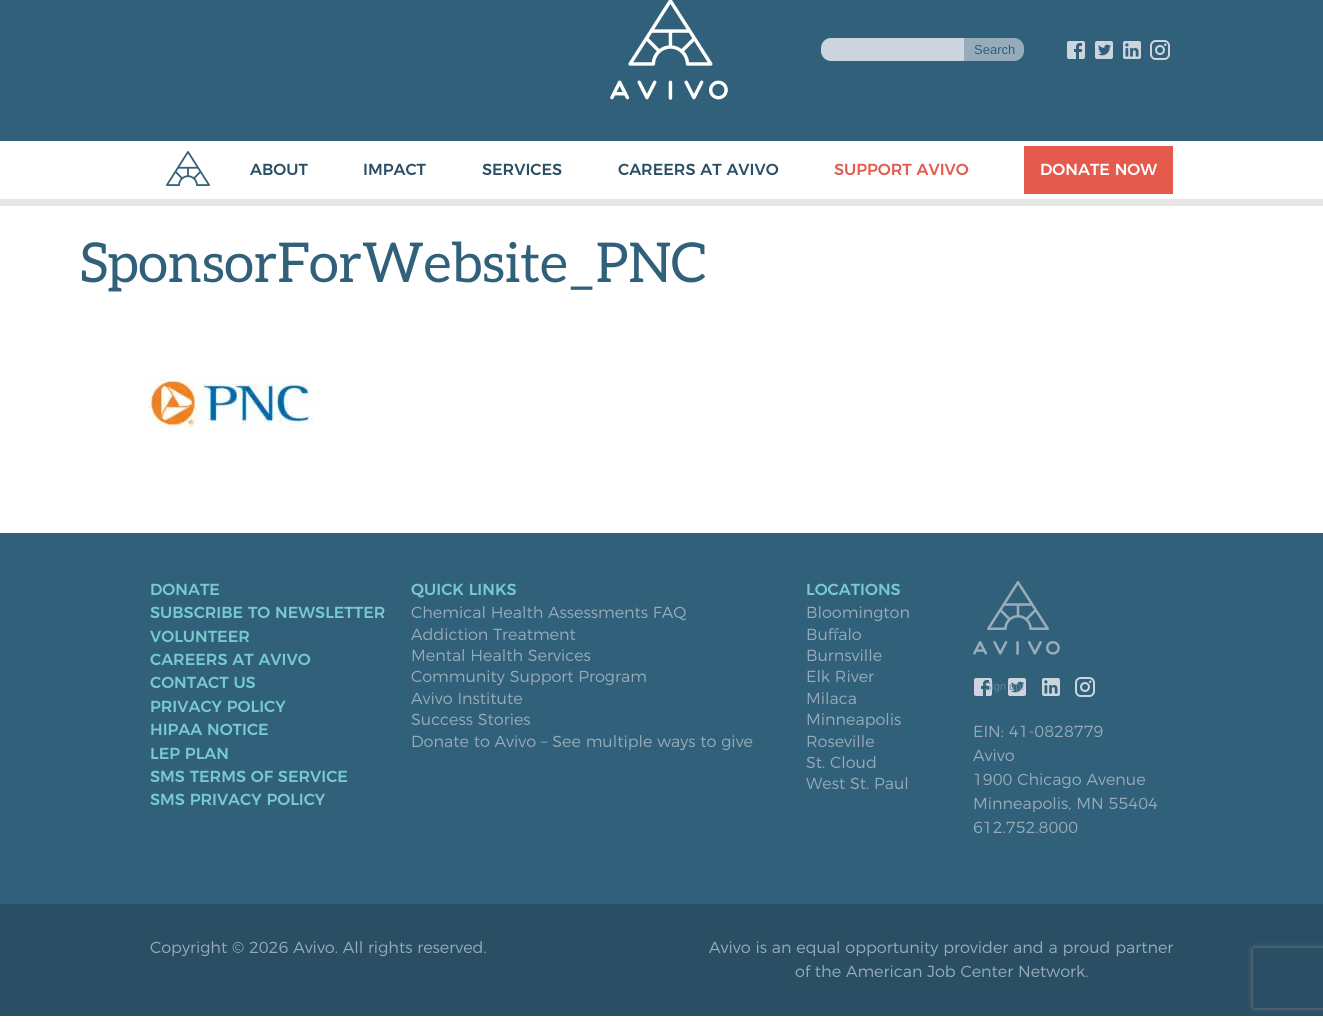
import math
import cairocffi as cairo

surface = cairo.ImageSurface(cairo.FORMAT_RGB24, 1323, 1022)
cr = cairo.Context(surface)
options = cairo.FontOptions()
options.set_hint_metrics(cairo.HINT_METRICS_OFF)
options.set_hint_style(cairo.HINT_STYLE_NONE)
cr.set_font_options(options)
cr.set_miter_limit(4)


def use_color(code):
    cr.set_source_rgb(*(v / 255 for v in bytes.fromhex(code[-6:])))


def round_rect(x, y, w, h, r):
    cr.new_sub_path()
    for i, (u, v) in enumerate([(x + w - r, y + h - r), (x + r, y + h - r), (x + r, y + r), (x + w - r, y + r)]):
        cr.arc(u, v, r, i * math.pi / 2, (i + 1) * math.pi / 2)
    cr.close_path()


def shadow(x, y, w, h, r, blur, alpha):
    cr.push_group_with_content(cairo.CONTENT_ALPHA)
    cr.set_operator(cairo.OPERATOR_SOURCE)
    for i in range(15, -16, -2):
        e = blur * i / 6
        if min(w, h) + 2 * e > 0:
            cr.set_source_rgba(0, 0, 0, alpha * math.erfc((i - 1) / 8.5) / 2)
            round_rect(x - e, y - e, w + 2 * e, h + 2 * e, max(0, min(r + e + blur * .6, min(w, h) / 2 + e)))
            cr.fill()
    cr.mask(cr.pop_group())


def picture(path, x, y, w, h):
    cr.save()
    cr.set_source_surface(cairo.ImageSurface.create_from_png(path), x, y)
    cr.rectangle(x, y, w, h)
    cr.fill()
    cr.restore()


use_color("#ffffff")
cr.paint()
use_color("#31607a")
cr.rectangle(0, 0, 1323, 141)
cr.fill()
picture("img1.png", 610, 0, 118, 100)
use_color("#ccd5dd")
cr.new_path()
cr.move_to(831, 38)
cr.line_to(964, 38)
cr.line_to(964, 61)
cr.line_to(831, 61)
cr.curve_to(825.5, 61, 821, 56.5, 821, 51)
cr.line_to(821, 48)
cr.curve_to(821, 42.5, 825.5, 38, 831, 38)
cr.close_path()
cr.fill()
use_color("#97acba")
cr.new_path()
cr.move_to(964, 38)
cr.line_to(1014, 38)
cr.curve_to(1019.5, 38, 1024, 42.5, 1024, 48)
cr.line_to(1024, 51)
cr.curve_to(1024, 56.5, 1019.5, 61, 1014, 61)
cr.line_to(964, 61)
cr.close_path()
cr.fill()
cr.select_font_face("Liberation Sans")
cr.set_font_size(13)
use_color("#31607a")
cr.move_to(974, 54)
cr.show_text("Search")
picture("img2.png", 1067, 41, 18, 18)
picture("img3.png", 1095, 41, 18, 18)
picture("img4.png", 1123, 41, 18, 18)
picture("img5.png", 1150, 40, 20, 20)
picture("img6.png", 166, 151, 44, 35)
cr.select_font_face("Montserrat Medium")
cr.set_font_size(16)
use_color("#2a4f65")
cr.move_to(250, 175)
cr.show_text("ABOUT")
cr.move_to(363, 175)
cr.show_text("IMPACT")
cr.move_to(482, 175)
cr.show_text("SERVICES")
cr.move_to(618, 175)
cr.show_text("CAREERS AT AVIVO")
use_color("#e45a4c")
cr.move_to(834, 175)
cr.show_text("SUPPORT AVIVO")
cr.rectangle(1024, 146, 149, 48)
cr.fill()
use_color("#ffffff")
cr.move_to(1040, 175)
cr.show_text("DONATE NOW")
use_color("#e6e6e6")
cr.rectangle(0, 199, 1323, 7)
cr.fill()
cr.select_font_face("Aleo")
cr.set_font_size(55)
use_color("#31607a")
cr.move_to(80, 282)
cr.show_text("SponsorForWebsite_PNC")
picture("img7.png", 146, 375, 168, 57)
cr.rectangle(0, 533, 1323, 371)
cr.fill()
cr.select_font_face("Montserrat Medium")
cr.set_font_size(16)
use_color("#77cbd0")
cr.move_to(150, 595)
cr.show_text("DONATE")
cr.move_to(150, 618)
cr.show_text("SUBSCRIBE TO NEWSLETTER")
cr.move_to(150, 642)
cr.show_text("VOLUNTEER")
cr.move_to(150, 665)
cr.show_text("CAREERS AT AVIVO")
cr.move_to(150, 688)
cr.show_text("CONTACT US")
cr.move_to(150, 712)
cr.show_text("PRIVACY POLICY")
cr.move_to(150, 735)
cr.show_text("HIPAA NOTICE")
cr.move_to(150, 759)
cr.show_text("LEP PLAN")
cr.move_to(150, 782)
cr.show_text("SMS TERMS OF SERVICE")
cr.move_to(150, 805)
cr.show_text("SMS PRIVACY POLICY")
cr.move_to(411, 595)
cr.show_text("QUICK LINKS")
cr.select_font_face("Montserrat Light")
use_color("#97acba")
cr.move_to(411, 618)
cr.show_text("Chemical Health Assessments FAQ")
cr.move_to(411, 640)
cr.show_text("Addiction Treatment")
cr.move_to(411, 661)
cr.show_text("Mental Health Services")
cr.move_to(411, 682)
cr.show_text("Community Support Program")
cr.move_to(411, 704)
cr.show_text("Avivo Institute")
cr.move_to(411, 725)
cr.show_text("Success Stories")
cr.move_to(411, 747)
cr.show_text("Donate to Avivo – See multiple ways to give")
cr.select_font_face("Montserrat Medium")
use_color("#77cbd0")
cr.move_to(806, 595)
cr.show_text("LOCATIONS")
cr.select_font_face("Montserrat Light")
use_color("#97acba")
cr.move_to(806, 618)
cr.show_text("Bloomington")
cr.move_to(806, 640)
cr.show_text("Buffalo")
cr.move_to(806, 661)
cr.show_text("Burnsville")
cr.move_to(806, 682)
cr.show_text("Elk River")
cr.move_to(806, 704)
cr.show_text("Milaca")
cr.move_to(806, 725)
cr.show_text("Minneapolis")
cr.move_to(806, 747)
cr.show_text("Roseville")
cr.move_to(806, 768)
cr.show_text("St. Cloud")
cr.move_to(806, 789)
cr.show_text("West St. Paul")
picture("img8.png", 973, 581, 87, 74)
picture("img2.png", 974, 678, 18, 18)
picture("img3.png", 1008, 678, 18, 18)
picture("img4.png", 1042, 678, 18, 18)
picture("img5.png", 1075, 677, 20, 20)
cr.move_to(973, 737)
cr.show_text("EIN: 41-0828779")
cr.move_to(973, 761)
cr.show_text("Avivo")
cr.move_to(973, 785)
cr.show_text("1900 Chicago Avenue")
cr.move_to(973, 809)
cr.show_text("Minneapolis, MN 55404")
cr.move_to(973, 833)
cr.show_text("612.752.8000")
use_color("#2a4f65")
cr.rectangle(0, 904, 1323, 112)
cr.fill()
use_color("#97acba")
cr.move_to(150, 953)
cr.show_text("Copyright © 2026 Avivo. All rights reserved.")
cr.move_to(709, 953)
cr.show_text("Avivo is an equal opportunity provider and a proud partner")
cr.move_to(795, 977)
cr.show_text("of the American Job Center Network.")
cr.select_font_face("Liberation Sans")
cr.set_font_size(8)
use_color("#31607a")
cr.move_to(835, 634)
cr.show_text("i")
cr.set_font_size(11)
use_color("#618498")
cr.move_to(984, 690)
cr.show_text("Sign up!")
cr.save()
cr.set_fill_rule(cairo.FILL_RULE_EVEN_ODD)
cr.new_path()
cr.move_to(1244, 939)
cr.line_to(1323, 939)
cr.line_to(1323, 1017)
cr.line_to(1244, 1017)
cr.close_path()
cr.move_to(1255, 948)
cr.line_to(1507, 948)
cr.curve_to(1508, 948, 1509, 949, 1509, 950)
cr.line_to(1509, 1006)
cr.curve_to(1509, 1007, 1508, 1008, 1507, 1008)
cr.line_to(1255, 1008)
cr.curve_to(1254, 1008, 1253, 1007, 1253, 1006)
cr.line_to(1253, 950)
cr.curve_to(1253, 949, 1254, 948, 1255, 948)
cr.close_path()
cr.clip()
use_color("#808080")
shadow(1253, 948, 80, 60, 2, 2.5, 1)
cr.restore()
surface.write_to_png("result.png")
